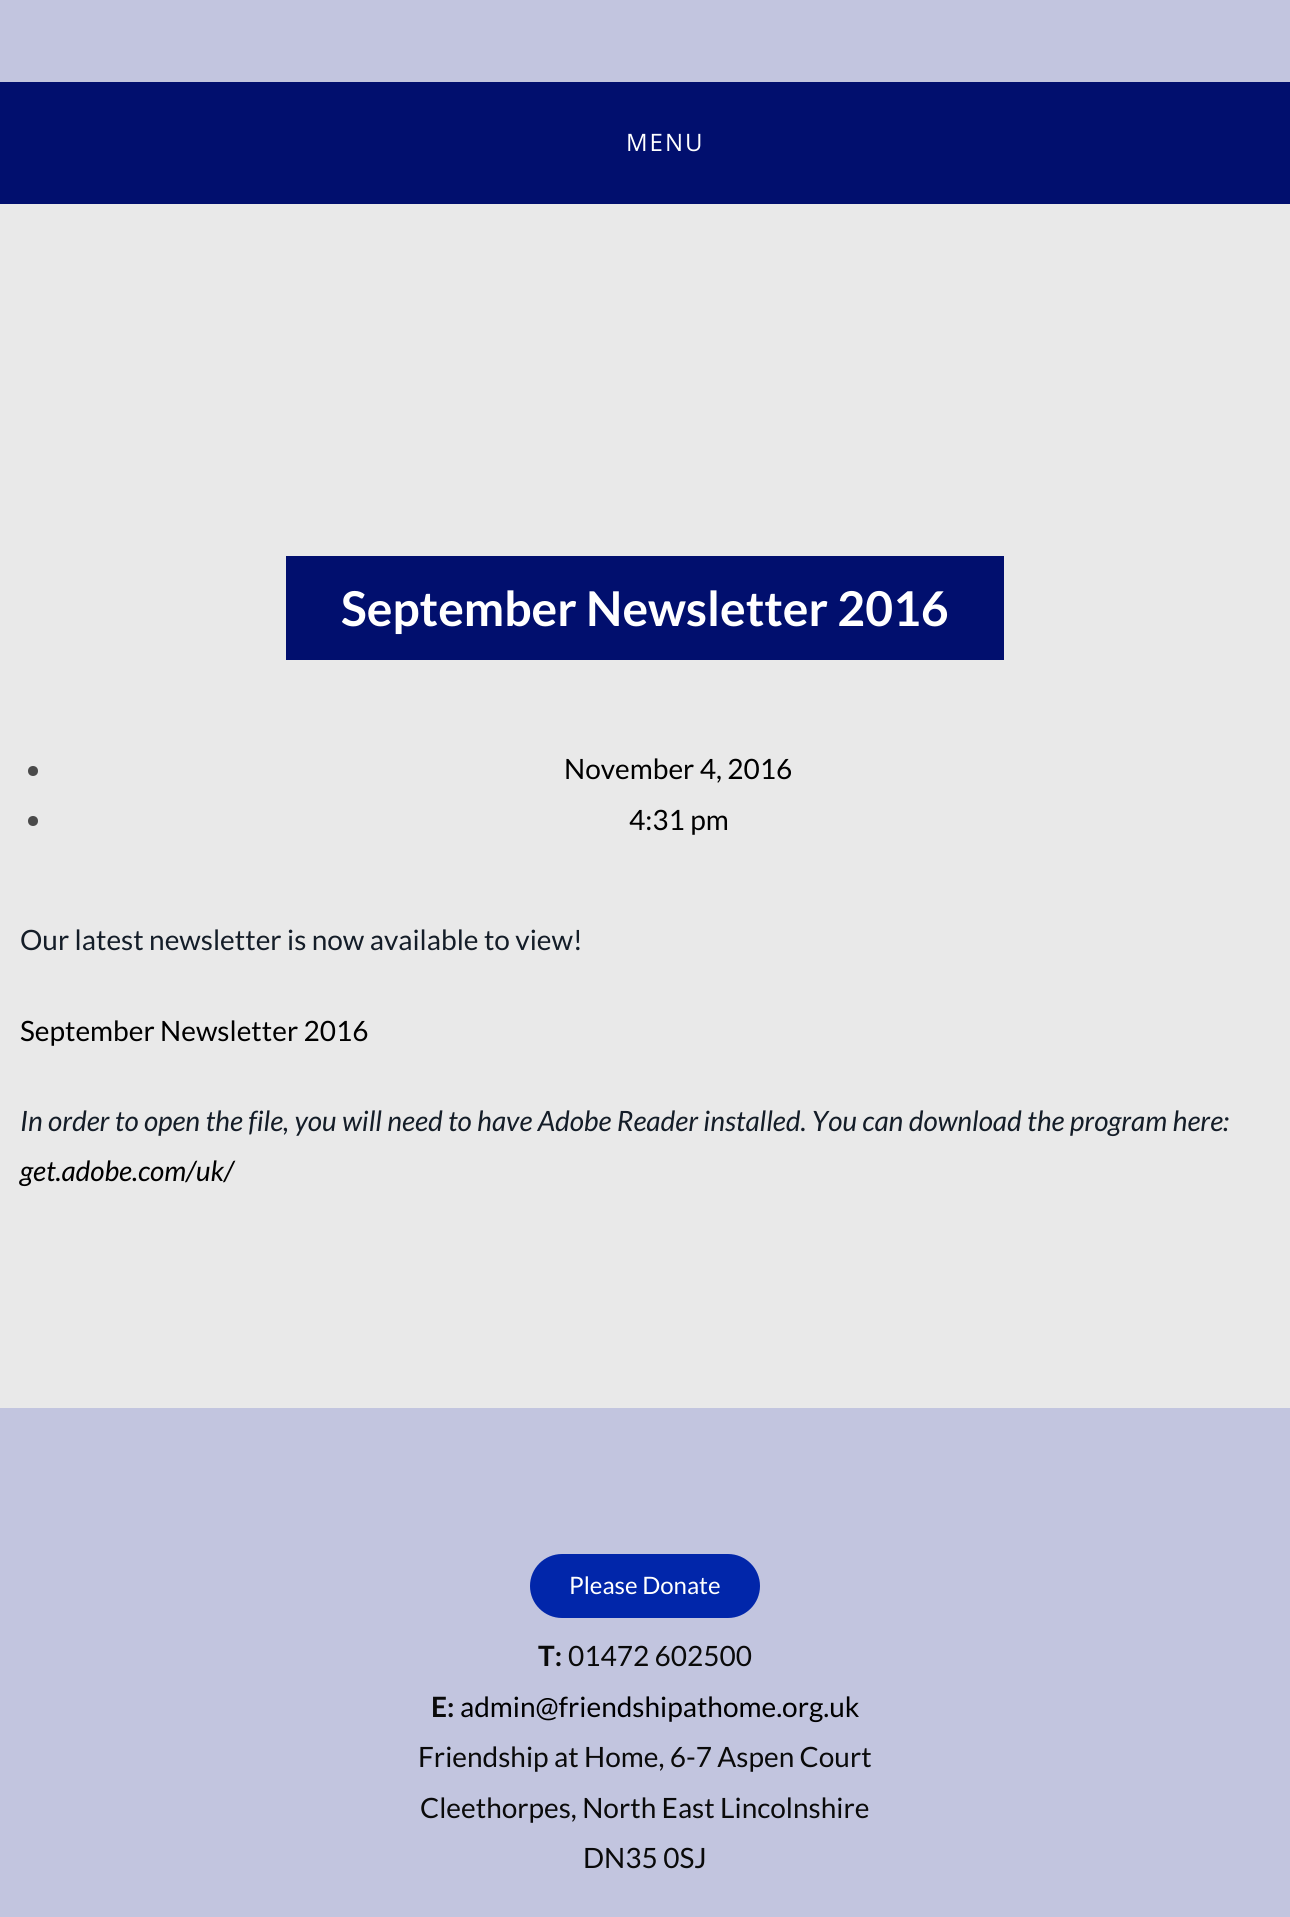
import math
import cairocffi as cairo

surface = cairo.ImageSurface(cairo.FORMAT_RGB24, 1290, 1917)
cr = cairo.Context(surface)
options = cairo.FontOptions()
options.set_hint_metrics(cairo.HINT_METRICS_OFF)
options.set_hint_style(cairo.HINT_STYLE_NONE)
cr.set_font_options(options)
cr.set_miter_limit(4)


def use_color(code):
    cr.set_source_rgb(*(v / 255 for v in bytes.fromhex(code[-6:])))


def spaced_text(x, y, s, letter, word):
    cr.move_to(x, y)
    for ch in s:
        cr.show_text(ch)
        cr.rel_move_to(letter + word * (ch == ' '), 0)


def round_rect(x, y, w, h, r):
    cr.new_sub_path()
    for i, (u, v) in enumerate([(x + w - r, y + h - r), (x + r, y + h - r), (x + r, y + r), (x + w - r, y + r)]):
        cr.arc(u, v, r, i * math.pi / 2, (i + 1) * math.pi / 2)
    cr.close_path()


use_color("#e9e9e9")
cr.paint()
use_color("#c2c5df")
cr.rectangle(0, 0, 1290, 82)
cr.fill()
use_color("#010f6e")
cr.rectangle(0, 82, 1290, 122)
cr.fill()
cr.select_font_face("Open Sans")
cr.set_font_size(24)
use_color("#ffffff")
spaced_text(626, 151, "MENU", 2, 0)
use_color("#010f6e")
cr.rectangle(286, 556, 718, 104)
cr.fill()
cr.select_font_face("Lato", cairo.FONT_SLANT_NORMAL, cairo.FONT_WEIGHT_BOLD)
cr.set_font_size(48)
use_color("#ffffff")
cr.move_to(341, 626)
cr.show_text("September Newsletter 2016")
use_color("#4a4a4a")
cr.new_path()
cr.arc(33, 771, 5, 0, 2 * math.pi)
cr.fill()
cr.select_font_face("Lato")
cr.set_font_size(28)
use_color("#000000")
cr.move_to(564, 779)
cr.show_text("November 4, 2016")
use_color("#4a4a4a")
cr.new_path()
cr.arc(33, 821, 5, 0, 2 * math.pi)
cr.fill()
use_color("#000000")
cr.move_to(629, 830)
cr.show_text("4:31 pm")
use_color("#141d28")
cr.move_to(20, 950)
cr.show_text("Our latest newsletter is now available to view!")
use_color("#000000")
cr.move_to(20, 1041)
cr.show_text("September Newsletter 2016")
cr.select_font_face("Lato", cairo.FONT_SLANT_ITALIC)
use_color("#141d28")
cr.move_to(20, 1131)
cr.show_text("In order to open the file, you will need to have Adobe Reader installed. You can download the program here:")
use_color("#000000")
cr.move_to(20, 1181)
cr.show_text("get.adobe.com/uk/")
use_color("#c2c5df")
cr.rectangle(0, 1408, 1290, 509)
cr.fill()
use_color("#0126aa")
round_rect(530, 1554, 230, 64, 32)
cr.fill()
cr.select_font_face("Lato")
cr.set_font_size(24)
use_color("#ffffff")
cr.move_to(569, 1594)
cr.show_text("Please Donate")
cr.select_font_face("Lato", cairo.FONT_SLANT_NORMAL, cairo.FONT_WEIGHT_BOLD)
cr.set_font_size(28)
use_color("#0a0a0a")
cr.move_to(538, 1666)
cr.show_text("T:")
cr.select_font_face("Lato")
cr.move_to(568, 1666)
cr.show_text("01472 602500")
cr.select_font_face("Lato", cairo.FONT_SLANT_NORMAL, cairo.FONT_WEIGHT_BOLD)
cr.move_to(431, 1717)
cr.show_text("E:")
cr.select_font_face("Lato")
use_color("#000000")
cr.move_to(460, 1717)
cr.show_text("admin@friendshipathome.org.uk")
use_color("#0a0a0a")
cr.move_to(418, 1767)
cr.show_text("Friendship at Home, 6-7 Aspen Court")
cr.move_to(420, 1818)
cr.show_text("Cleethorpes, North East Lincolnshire")
cr.move_to(583, 1868)
cr.show_text("DN35 0SJ")
surface.write_to_png("result.png")
